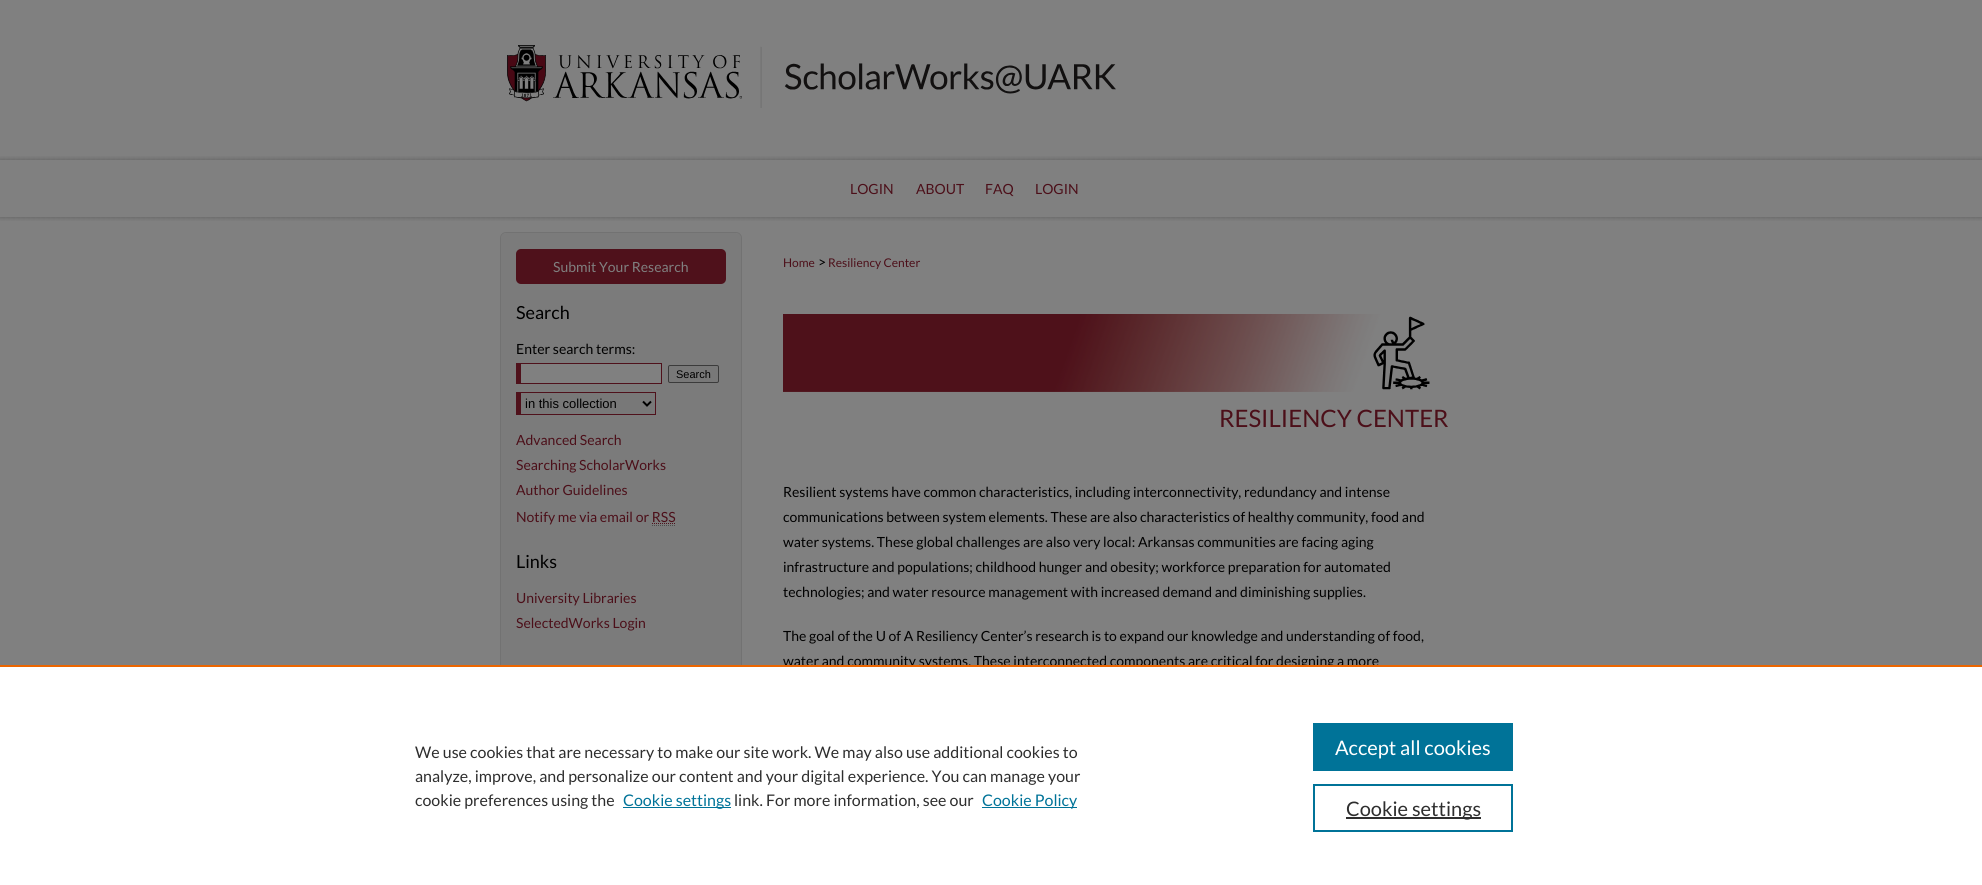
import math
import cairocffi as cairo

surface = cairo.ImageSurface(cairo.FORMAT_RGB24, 1982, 885)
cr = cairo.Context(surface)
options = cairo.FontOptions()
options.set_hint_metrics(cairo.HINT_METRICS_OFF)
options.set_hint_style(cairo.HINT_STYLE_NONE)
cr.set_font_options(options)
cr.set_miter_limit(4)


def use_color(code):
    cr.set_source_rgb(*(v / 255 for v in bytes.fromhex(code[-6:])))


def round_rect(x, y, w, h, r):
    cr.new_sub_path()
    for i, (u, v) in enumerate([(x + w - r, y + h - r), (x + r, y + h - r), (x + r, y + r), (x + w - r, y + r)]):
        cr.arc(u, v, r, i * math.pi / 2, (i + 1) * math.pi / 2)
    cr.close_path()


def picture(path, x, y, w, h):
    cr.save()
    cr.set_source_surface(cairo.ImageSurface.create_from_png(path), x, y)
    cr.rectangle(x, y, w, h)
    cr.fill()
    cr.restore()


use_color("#808080")
cr.paint()
picture("img1.png", 0, 156, 1982, 65)
picture("img2.png", 507, 45, 609, 63)
cr.select_font_face("Lato")
cr.set_font_size(14)
use_color("#4c0f19")
cr.move_to(850, 194)
cr.show_text("LOGIN")
cr.move_to(916, 194)
cr.show_text("ABOUT")
cr.move_to(985, 194)
cr.show_text("FAQ")
cr.move_to(1035, 194)
cr.show_text("LOGIN")
use_color("#7b7b7b")
round_rect(501, 233, 240, 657, 5)
cr.fill()
use_color("#4f111b")
round_rect(516, 249, 210, 35, 5)
cr.fill()
use_color("#4c0f19")
cr.move_to(516, 522)
cr.show_text("Notify me via email or RSS")
cr.new_path()
cr.move_to(652, 523.5)
cr.line_to(675.5, 523.5)
use_color("#4e111b")
cr.set_line_width(1)
cr.set_dash([1, 1])
cr.stroke()
cr.new_path()
cr.move_to(652, 525.5)
cr.line_to(676, 525.5)
use_color("#4d4d4d")
cr.stroke()
round_rect(500.5, 232.5, 241, 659, 5.5)
use_color("#727272")
cr.set_dash([])
cr.stroke()
use_color("#808080")
cr.move_to(553, 272)
cr.show_text("Submit Your Research")
cr.set_font_size(18)
use_color("#000000")
cr.move_to(516, 319)
cr.show_text("Search")
cr.set_font_size(14)
cr.move_to(516, 354)
cr.show_text("Enter search terms:")
use_color("#808080")
cr.rectangle(521, 364, 140, 19)
cr.fill()
use_color("#4f111b")
cr.rectangle(516, 363, 146, 1)
cr.fill()
cr.rectangle(661, 363, 1, 21)
cr.fill()
cr.rectangle(516, 383, 146, 1)
cr.fill()
cr.rectangle(516, 363, 5, 21)
cr.fill()
use_color("#787878")
round_rect(668.5, 365.5, 50, 17, 1.5)
cr.fill_preserve()
use_color("#3b3b3b")
cr.stroke()
cr.select_font_face("Liberation Sans")
cr.set_font_size(11)
use_color("#000000")
cr.move_to(676, 378)
cr.show_text("Search")
use_color("#787878")
cr.rectangle(521, 393, 134, 21)
cr.fill()
use_color("#4f111b")
cr.rectangle(516, 392, 140, 1)
cr.fill()
cr.rectangle(655, 392, 1, 23)
cr.fill()
cr.rectangle(516, 414, 140, 1)
cr.fill()
cr.rectangle(516, 392, 5, 23)
cr.fill()
cr.new_path()
cr.move_to(643, 401.5)
cr.line_to(647, 405.5)
cr.line_to(651, 401.5)
use_color("#000000")
cr.set_line_width(2)
cr.stroke()
cr.set_font_size(13)
cr.move_to(525, 408)
cr.show_text("in this collection")
cr.select_font_face("Lato")
cr.set_font_size(14)
use_color("#4c0f19")
cr.move_to(516, 445)
cr.show_text("Advanced Search")
cr.move_to(516, 470)
cr.show_text("Searching ScholarWorks")
cr.move_to(516, 495)
cr.show_text("Author Guidelines")
cr.set_font_size(18)
use_color("#000000")
cr.move_to(516, 568)
cr.show_text("Links")
cr.set_font_size(14)
use_color("#4c0f19")
cr.move_to(516, 603)
cr.show_text("University Libraries")
cr.move_to(516, 628)
cr.show_text("SelectedWorks Login")
cr.set_font_size(12)
cr.move_to(783, 267)
cr.show_text("Home")
cr.set_font_size(14)
use_color("#000000")
cr.move_to(818, 267)
cr.show_text(">")
cr.set_font_size(12)
use_color("#4c0f19")
cr.move_to(828, 267)
cr.show_text("Resiliency Center")
picture("img3.png", 783, 314, 647, 78)
cr.set_font_size(24)
cr.move_to(1219, 427)
cr.show_text("RESILIENCY CENTER")
cr.set_font_size(14)
use_color("#000000")
cr.move_to(783, 497)
cr.show_text("Resilient systems have common characteristics, including interconnectivity, redundancy and intense")
cr.move_to(783, 522)
cr.show_text("communications between system elements. These are also characteristics of healthy community, food and")
cr.move_to(783, 547)
cr.show_text("water systems. These global challenges are also very local: Arkansas communities are facing aging")
cr.move_to(783, 572)
cr.show_text("infrastructure and populations; childhood hunger and obesity; workforce preparation for automated")
cr.move_to(783, 597)
cr.show_text("technologies; and water resource management with increased demand and diminishing supplies.")
cr.move_to(783, 641)
cr.show_text("The goal of the U of A Resiliency Center’s research is to expand our knowledge and understanding of food,")
cr.move_to(783, 666)
cr.show_text("water and community systems. These interconnected components are critical for designing a more")
use_color("#ffffff")
cr.rectangle(0, 667, 1982, 218)
cr.fill()
use_color("#eb6500")
cr.rectangle(0, 665, 1982, 2)
cr.fill()
cr.set_font_size(16)
use_color("#2e2e2e")
cr.move_to(415, 758)
cr.show_text("We use cookies that are necessary to make our site work. We may also use additional cookies to")
cr.move_to(415, 782)
cr.show_text("analyze, improve, and personalize our content and your digital experience. You can manage your")
cr.move_to(415, 806)
cr.show_text("cookie preferences using the")
use_color("#007398")
cr.rectangle(623, 807, 108, 1)
cr.fill()
cr.move_to(623, 806)
cr.show_text("Cookie settings")
use_color("#2e2e2e")
cr.move_to(734, 806)
cr.show_text("link. For more information, see our")
use_color("#007398")
cr.rectangle(982, 807, 95, 1)
cr.fill()
cr.move_to(982, 806)
cr.show_text("Cookie Policy")
cr.rectangle(1313, 723, 200, 48)
cr.fill()
cr.set_font_size(20)
use_color("#ffffff")
cr.move_to(1335, 755)
cr.show_text("Accept all cookies")
cr.rectangle(1314, 785, 198, 46)
use_color("#007398")
cr.stroke()
use_color("#2e2e2e")
cr.rectangle(1346, 817, 135, 2)
cr.fill()
cr.move_to(1346, 816)
cr.show_text("Cookie settings")
surface.write_to_png("result.png")
